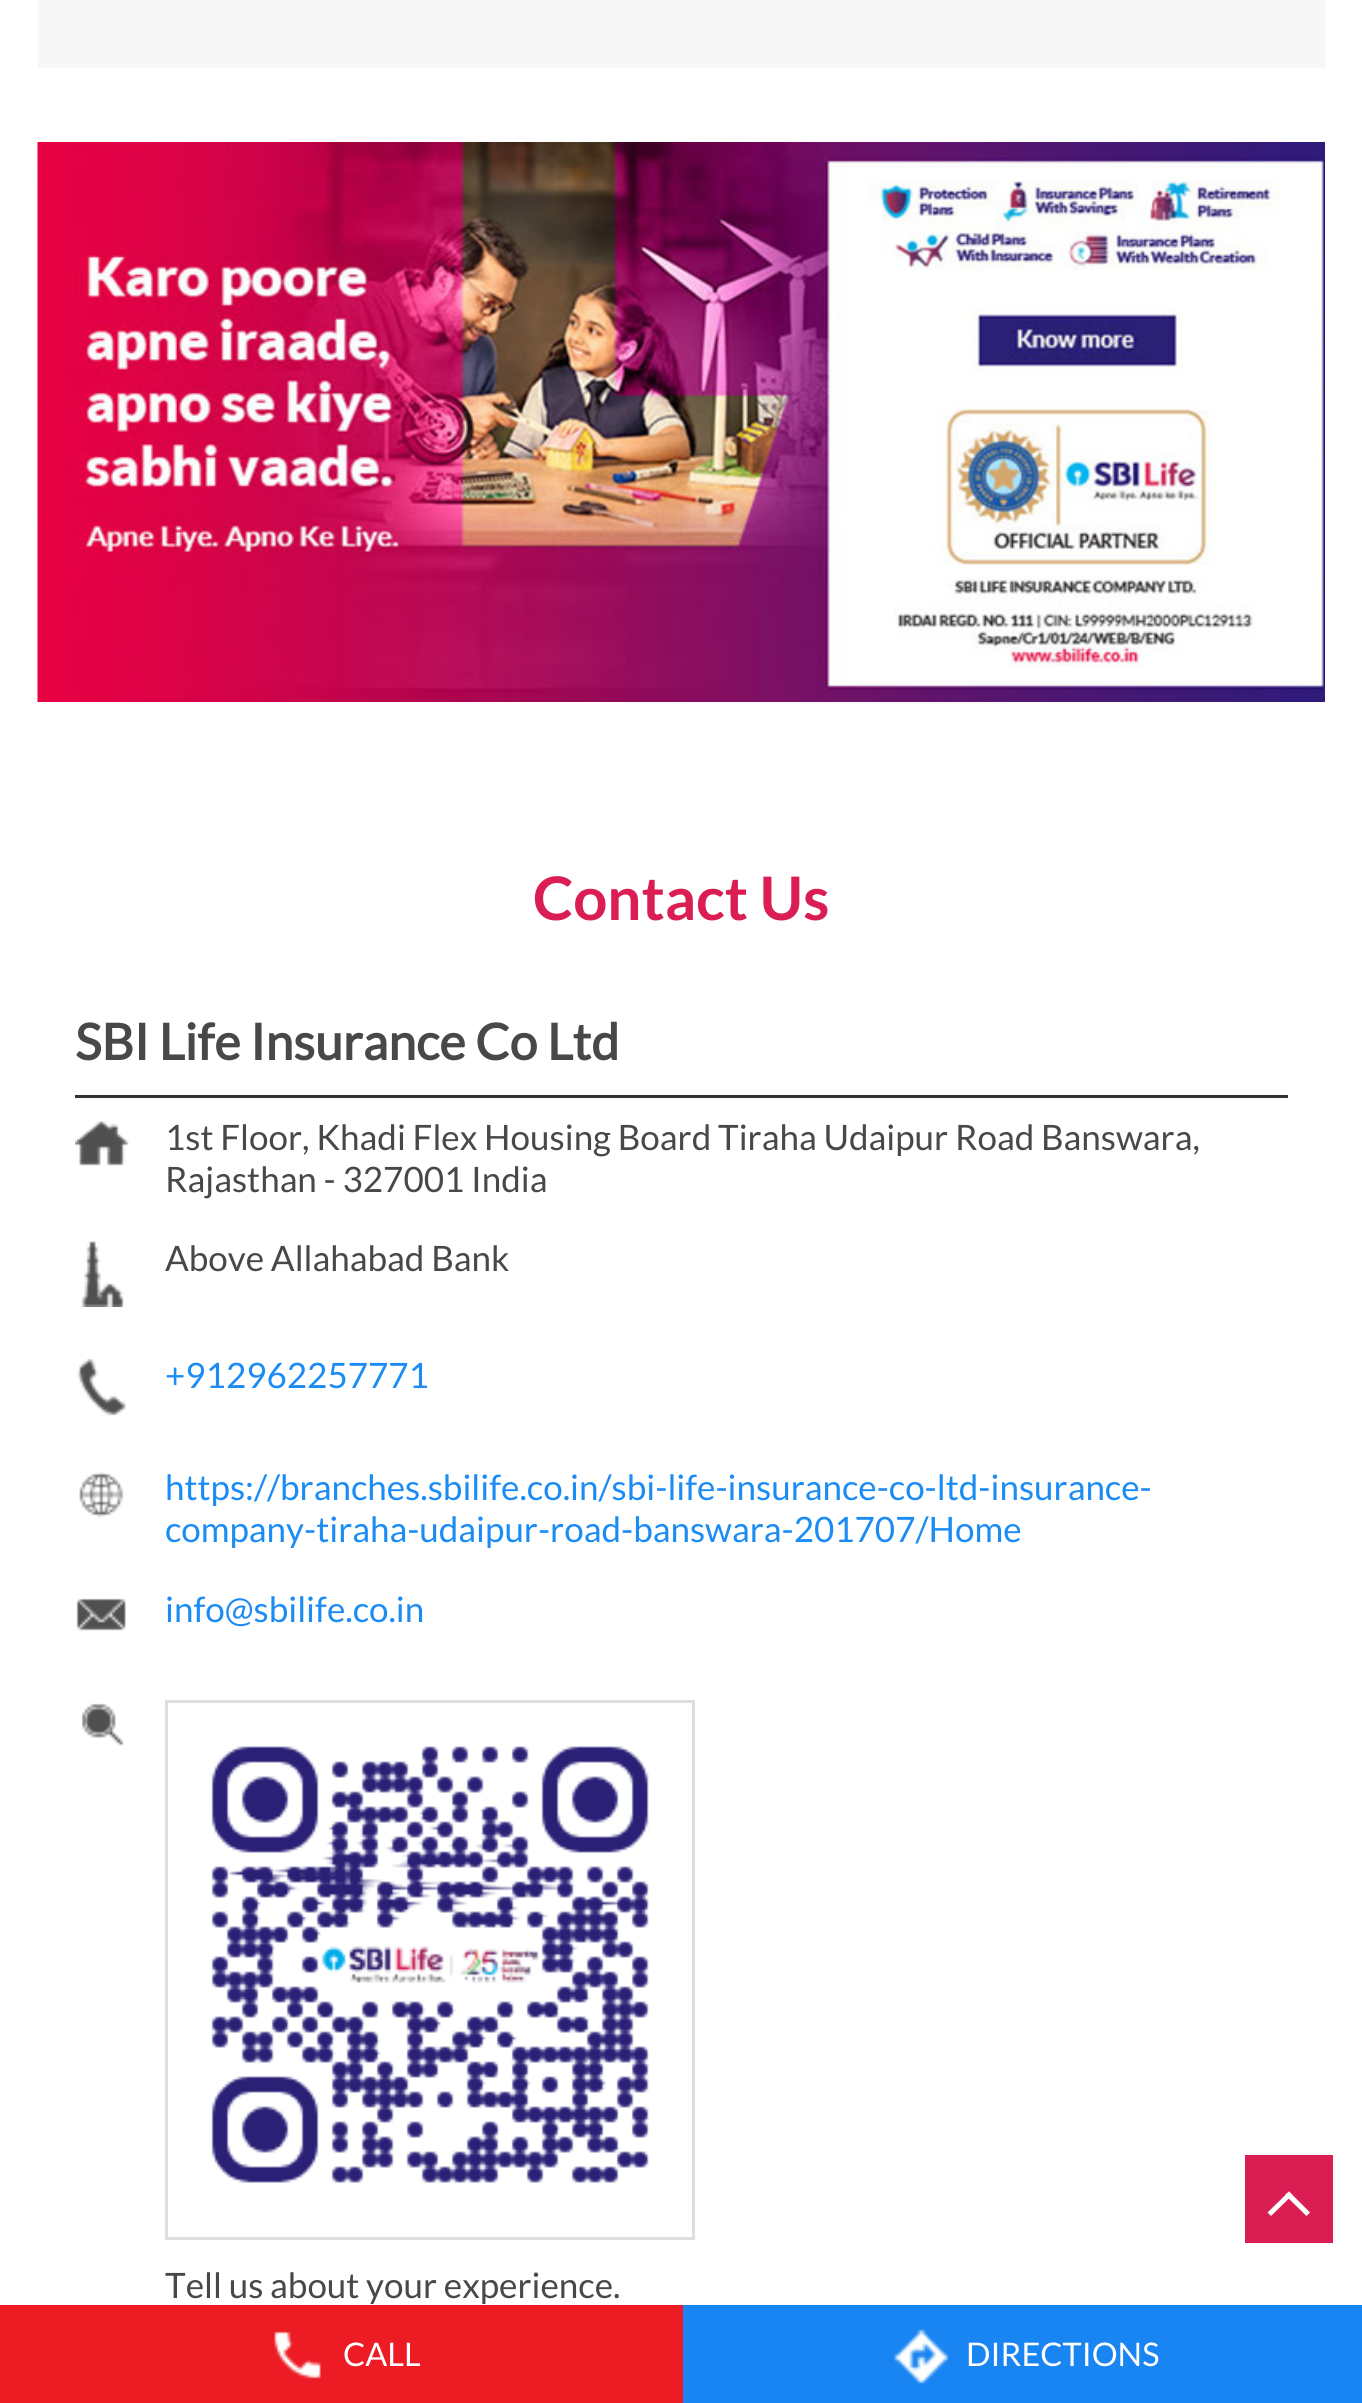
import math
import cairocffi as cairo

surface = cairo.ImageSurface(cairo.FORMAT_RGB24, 1362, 2403)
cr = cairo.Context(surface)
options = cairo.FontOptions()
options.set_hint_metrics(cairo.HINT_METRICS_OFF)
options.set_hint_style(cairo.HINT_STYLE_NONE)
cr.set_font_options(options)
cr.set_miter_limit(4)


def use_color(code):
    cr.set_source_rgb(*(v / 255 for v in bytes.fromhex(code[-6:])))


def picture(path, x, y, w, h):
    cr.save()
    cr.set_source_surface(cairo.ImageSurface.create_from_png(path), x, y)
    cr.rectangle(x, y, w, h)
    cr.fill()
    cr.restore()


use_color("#ffffff")
cr.paint()
cr.select_font_face("Lato", cairo.FONT_SLANT_NORMAL, cairo.FONT_WEIGHT_BOLD)
cr.set_font_size(60)
use_color("#da1d52")
cr.move_to(533, 920)
cr.show_text("Contact Us")
use_color("#333333")
cr.rectangle(75, 1095, 1213, 3)
cr.fill()
cr.select_font_face("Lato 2", cairo.FONT_SLANT_NORMAL, cairo.FONT_WEIGHT_BOLD)
cr.set_font_size(50)
use_color("#484848")
cr.move_to(75, 1060)
cr.show_text("SBI Life Insurance Co Ltd")
picture("img1.png", 75, 1121, 54, 45)
cr.select_font_face("Lato")
cr.set_font_size(35)
cr.move_to(165, 1150)
cr.show_text("1st Floor, Khadi Flex Housing Board Tiraha Udaipur Road Banswara,")
cr.move_to(165, 1192)
cr.show_text("Rajasthan - 327001 India")
picture("img2.png", 81, 1241, 43, 66)
cr.move_to(165, 1271)
cr.show_text("Above Allahabad Bank")
picture("img3.png", 77, 1358, 49, 58)
use_color("#1c8cf5")
cr.move_to(165, 1388)
cr.show_text("+912962257771")
picture("img4.png", 79, 1471, 45, 47)
cr.move_to(165, 1500)
cr.show_text("https://branches.sbilife.co.in/sbi-life-insurance-co-ltd-insurance-")
cr.move_to(165, 1542)
cr.show_text("company-tiraha-udaipur-road-banswara-201707/Home")
picture("img5.png", 76, 1598, 50, 33)
cr.move_to(165, 1622)
cr.show_text("info@sbilife.co.in")
picture("img6.png", 81, 1703, 43, 43)
cr.rectangle(166.5, 1701.5, 527, 537)
use_color("#dddddd")
cr.set_line_width(3)
cr.stroke()
picture("img7.png", 211, 1746, 438, 437)
use_color("#484848")
cr.move_to(165, 2298)
cr.show_text("Tell us about your experience.")
picture("img8.png", 37, 142, 1288, 560)
use_color("#f7f7f7")
cr.rectangle(38, 0, 1287, 68)
cr.fill()
use_color("#ed1c24")
cr.rectangle(0, 2305, 683, 98)
cr.fill()
picture("img9.png", 274, 2331, 47, 48)
cr.set_font_size(32.5)
use_color("#ffffff")
cr.move_to(343, 2366)
cr.show_text("CALL")
use_color("#1985f2")
cr.rectangle(683, 2305, 679, 98)
cr.fill()
picture("img10.png", 894, 2329, 55, 55)
use_color("#ffffff")
cr.move_to(966, 2366)
cr.show_text("DIRECTIONS")
use_color("#da1d52")
cr.rectangle(1245, 2155, 88, 88)
cr.fill()
use_color("#ffffff")
cr.new_path()
cr.move_to(1271, 2216)
cr.line_to(1267.5, 2212.5)
cr.line_to(1289, 2191.5)
cr.line_to(1292.5, 2195)
cr.close_path()
cr.fill()
cr.new_path()
cr.move_to(1306.5, 2216)
cr.line_to(1285, 2195)
cr.line_to(1289, 2191.5)
cr.line_to(1310, 2212.5)
cr.close_path()
cr.fill()
surface.write_to_png("result.png")
